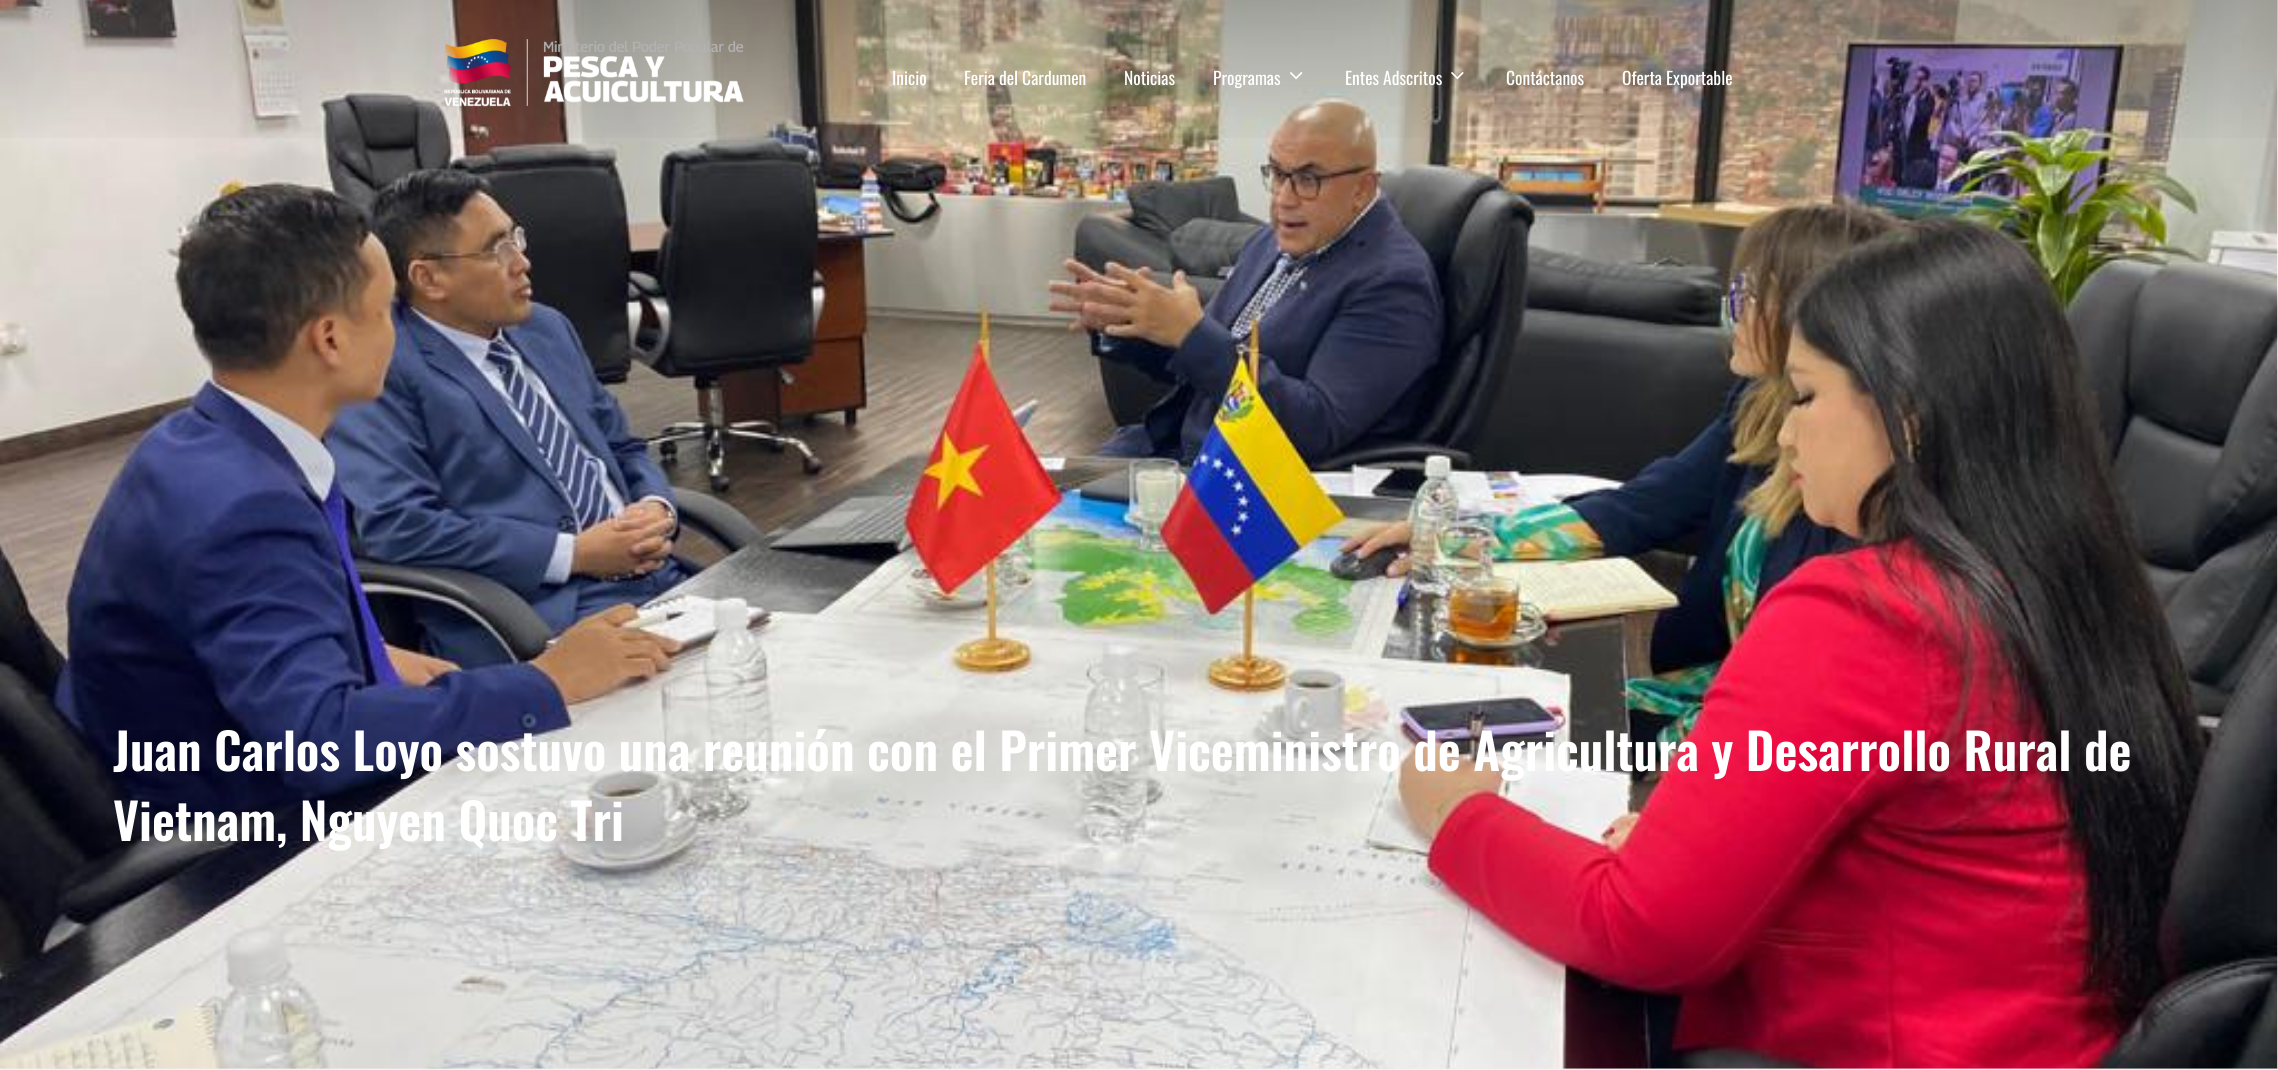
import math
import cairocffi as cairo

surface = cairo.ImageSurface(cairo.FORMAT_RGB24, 2278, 1070)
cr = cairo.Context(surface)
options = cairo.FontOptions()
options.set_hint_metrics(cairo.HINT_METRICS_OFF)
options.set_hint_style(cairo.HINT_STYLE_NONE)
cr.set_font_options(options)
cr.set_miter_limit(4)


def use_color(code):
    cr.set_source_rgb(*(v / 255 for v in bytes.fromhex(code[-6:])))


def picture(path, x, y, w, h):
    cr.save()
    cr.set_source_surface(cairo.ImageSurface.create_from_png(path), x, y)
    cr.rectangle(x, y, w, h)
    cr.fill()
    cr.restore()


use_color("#ffffff")
cr.paint()
use_color("#f0f2f5")
cr.rectangle(0, 1068, 2278, 2)
cr.fill()
picture("img4.png", 0, 0, 2278, 1069)
gradient = cairo.LinearGradient(1139, 0, 1139, 154)
gradient.add_color_stop_rgba(0.01, 0, 0, 0, 0.2)
gradient.add_color_stop_rgba(1, 0, 0, 0, 0)
cr.set_source(gradient)
cr.rectangle(0, 0, 2278, 138)
cr.fill()
picture("img1.png", 444, 39, 300, 68)
cr.select_font_face("Oswald")
cr.set_font_size(17.5)
use_color("#ffffff")
cr.move_to(892, 85)
cr.show_text("Inicio")
cr.move_to(964, 85)
cr.show_text("Feria del Cardumen")
cr.move_to(1124, 85)
cr.show_text("Noticias")
cr.move_to(1213, 85)
cr.show_text("Programas")
picture("img2.png", 1290, 72, 13, 8)
cr.move_to(1345, 85)
cr.show_text("Entes Adscritos")
picture("img3.png", 1451, 72, 13, 8)
cr.move_to(1506, 85)
cr.show_text("Contáctanos")
cr.move_to(1622, 85)
cr.show_text("Oferta Exportable")
cr.select_font_face("Oswald SemiBold")
cr.set_font_size(50)
cr.move_to(113, 771)
cr.show_text("Juan Carlos Loyo sostuvo una reunión con el Primer Viceministro de Agricultura y Desarrollo Rural de")
cr.move_to(113, 841)
cr.show_text("Vietnam, Nguyen Quoc Tri")
surface.write_to_png("result.png")
